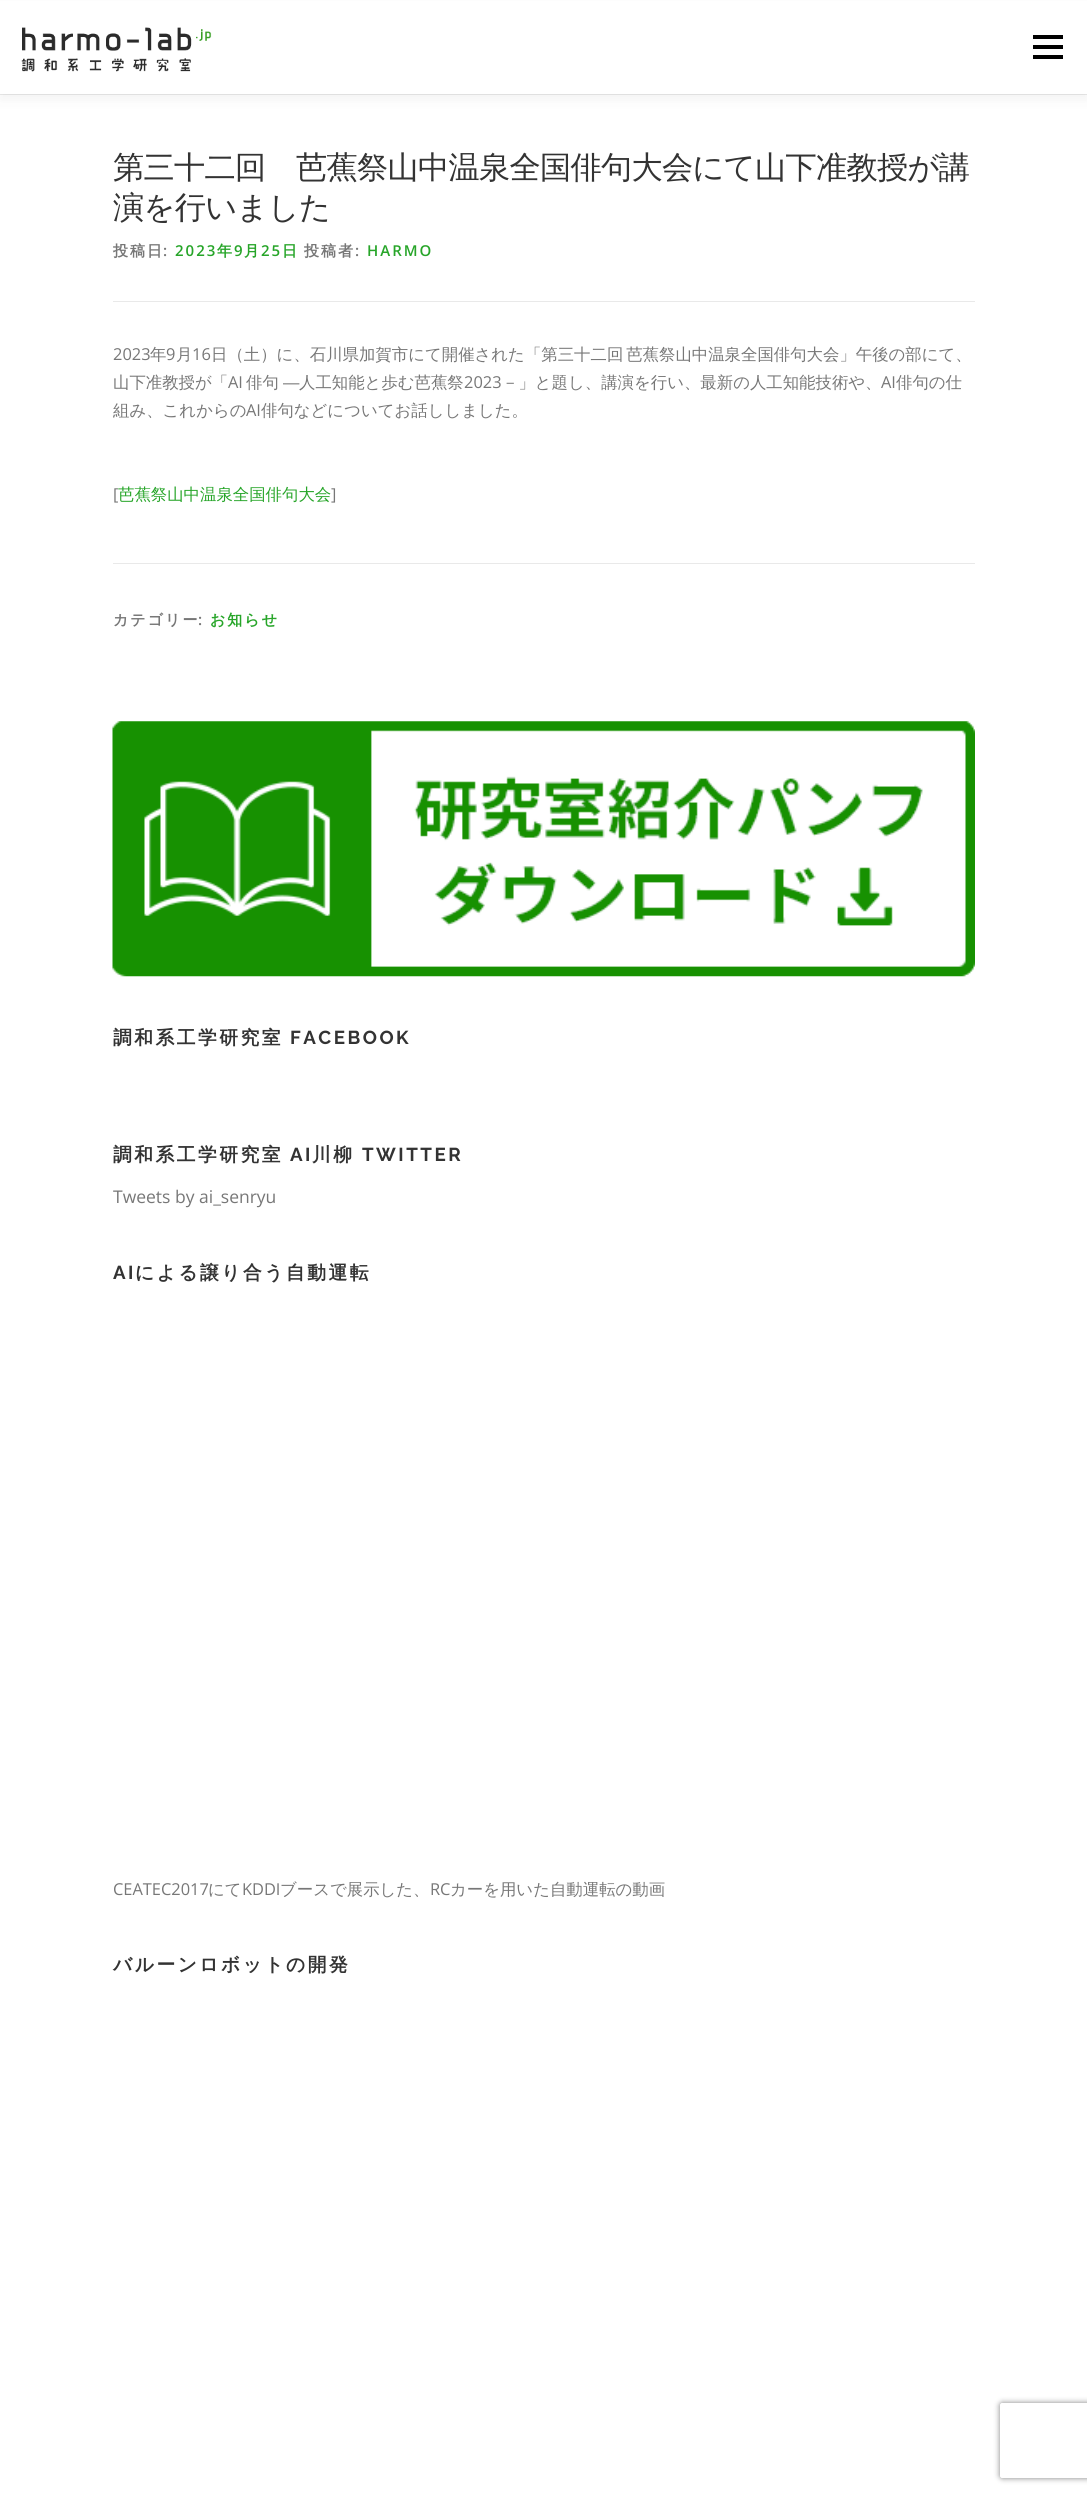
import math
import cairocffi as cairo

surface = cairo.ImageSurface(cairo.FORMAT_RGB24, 1087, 2494)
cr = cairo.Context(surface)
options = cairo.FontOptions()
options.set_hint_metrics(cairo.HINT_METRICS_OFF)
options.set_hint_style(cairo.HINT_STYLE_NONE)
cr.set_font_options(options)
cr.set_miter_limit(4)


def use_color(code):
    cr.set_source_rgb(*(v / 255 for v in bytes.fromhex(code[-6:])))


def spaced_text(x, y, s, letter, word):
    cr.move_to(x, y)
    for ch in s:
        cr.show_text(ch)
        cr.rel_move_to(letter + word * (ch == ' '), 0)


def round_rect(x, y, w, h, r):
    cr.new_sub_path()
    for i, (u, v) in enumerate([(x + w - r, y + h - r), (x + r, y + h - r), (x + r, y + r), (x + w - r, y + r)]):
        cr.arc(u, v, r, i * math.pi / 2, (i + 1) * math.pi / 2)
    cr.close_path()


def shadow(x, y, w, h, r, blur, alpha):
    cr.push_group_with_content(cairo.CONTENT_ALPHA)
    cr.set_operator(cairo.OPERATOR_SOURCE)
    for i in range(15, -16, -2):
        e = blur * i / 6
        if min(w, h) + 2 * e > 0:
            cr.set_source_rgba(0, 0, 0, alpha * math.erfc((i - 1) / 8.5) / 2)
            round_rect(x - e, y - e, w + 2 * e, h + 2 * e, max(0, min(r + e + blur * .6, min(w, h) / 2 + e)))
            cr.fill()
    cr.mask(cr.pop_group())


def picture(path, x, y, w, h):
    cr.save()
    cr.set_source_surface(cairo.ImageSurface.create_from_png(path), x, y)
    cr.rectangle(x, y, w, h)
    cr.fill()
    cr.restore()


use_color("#ffffff")
cr.paint()
use_color("#e9e9e9")
cr.rectangle(0, 94, 1087, 1)
cr.fill()
use_color("#323232")
shadow(0, 6, 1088, 94, 0, 6, 0.06)
use_color("#ffffff")
cr.rectangle(0, 1, 1087, 93)
cr.fill()
picture("img1.png", 21, 27, 191, 45)
use_color("#000000")
cr.rectangle(1033, 45, 30, 4)
cr.fill()
cr.rectangle(1033, 35, 30, 4)
cr.fill()
cr.rectangle(1033, 55, 30, 4)
cr.fill()
cr.select_font_face("WenQuanYi Zen Hei Medium")
cr.set_font_size(31.25)
use_color("#333333")
spaced_text(113, 178, "第三十二回　芭蕉祭山中温泉全国俳句大会にて山下准教授が講", -0.75, 0)
spaced_text(113, 218, "演を行いました", -0.75, 0)
use_color("#e9e9e9")
cr.rectangle(113, 301, 862, 1)
cr.fill()
cr.select_font_face("WenQuanYi Zen Hei", cairo.FONT_SLANT_NORMAL, cairo.FONT_WEIGHT_BOLD)
cr.set_font_size(15)
use_color("#777777")
spaced_text(113, 256, "投稿日", 2, 0)
cr.select_font_face("Open Sans SemiBold")
spaced_text(163, 256, ":", 2, 0)
use_color("#27a529")
spaced_text(175, 256, "2023", 2, 0)
cr.select_font_face("WenQuanYi Zen Hei", cairo.FONT_SLANT_NORMAL, cairo.FONT_WEIGHT_BOLD)
spaced_text(217, 256, "年", 2, 0)
cr.select_font_face("Open Sans SemiBold")
spaced_text(234, 256, "9", 2, 0)
cr.select_font_face("WenQuanYi Zen Hei", cairo.FONT_SLANT_NORMAL, cairo.FONT_WEIGHT_BOLD)
spaced_text(244, 256, "月", 2, 0)
cr.select_font_face("Open Sans SemiBold")
spaced_text(261, 256, "25", 2, 0)
cr.select_font_face("WenQuanYi Zen Hei", cairo.FONT_SLANT_NORMAL, cairo.FONT_WEIGHT_BOLD)
spaced_text(282, 256, "日", 2, 0)
use_color("#777777")
spaced_text(304, 256, "投稿者", 2, 0)
cr.select_font_face("Open Sans SemiBold")
spaced_text(355, 256, ":", 2, 0)
use_color("#27a529")
spaced_text(367, 256, "HARMO", 2, 0)
cr.select_font_face("Open Sans")
cr.set_font_size(16.4)
use_color("#777777")
cr.move_to(113, 360)
cr.show_text("2023")
cr.select_font_face("WenQuanYi Zen Hei Medium")
cr.move_to(150, 360)
cr.show_text("年")
cr.select_font_face("Open Sans")
cr.move_to(166, 360)
cr.show_text("9")
cr.select_font_face("WenQuanYi Zen Hei Medium")
cr.move_to(176, 360)
cr.show_text("月")
cr.select_font_face("Open Sans")
cr.move_to(192, 360)
cr.show_text("16")
cr.select_font_face("WenQuanYi Zen Hei Medium")
spaced_text(211, 360, "日（土）に、石川県加賀市にて開催された「第三十二回 芭蕉祭山中温泉全国俳句大会」午後の部にて、", 0, -2)
cr.move_to(113, 388)
cr.show_text("山下准教授が「")
cr.select_font_face("Open Sans")
cr.move_to(228, 388)
cr.show_text("AI")
cr.select_font_face("WenQuanYi Zen Hei Medium")
cr.move_to(246, 388)
cr.show_text("俳句")
cr.select_font_face("Liberation Sans")
cr.move_to(283, 388)
cr.show_text("―")
cr.select_font_face("WenQuanYi Zen Hei Medium")
cr.move_to(299, 388)
cr.show_text("人工知能と歩む芭蕉祭")
cr.select_font_face("Open Sans")
cr.move_to(464, 388)
cr.show_text("2023")
cr.select_font_face("WenQuanYi Zen Hei Medium")
cr.move_to(502, 388)
cr.show_text("－」と題し、講演を行い、最新の人工知能技術や、")
cr.select_font_face("Open Sans")
cr.move_to(881, 388)
cr.show_text("AI")
cr.select_font_face("WenQuanYi Zen Hei Medium")
cr.move_to(896, 388)
cr.show_text("俳句の仕")
cr.move_to(113, 416)
cr.show_text("組み、これからの")
cr.select_font_face("Open Sans")
cr.move_to(246, 416)
cr.show_text("AI")
cr.select_font_face("WenQuanYi Zen Hei Medium")
cr.move_to(261, 416)
cr.show_text("俳句などについてお話ししました。")
cr.select_font_face("Open Sans")
cr.move_to(113, 500)
cr.show_text("[")
cr.select_font_face("WenQuanYi Zen Hei Medium")
use_color("#27a529")
cr.move_to(118, 500)
cr.show_text("芭蕉祭山中温泉全国俳句大会")
cr.select_font_face("Open Sans")
use_color("#777777")
cr.move_to(331, 500)
cr.show_text("]")
use_color("#e9e9e9")
cr.rectangle(113, 563, 862, 1)
cr.fill()
cr.select_font_face("WenQuanYi Zen Hei", cairo.FONT_SLANT_NORMAL, cairo.FONT_WEIGHT_BOLD)
cr.set_font_size(15)
use_color("#777777")
spaced_text(113, 625, "カテゴリー", 2, 0)
cr.select_font_face("Open Sans SemiBold")
spaced_text(198, 625, ":", 2, 0)
cr.select_font_face("WenQuanYi Zen Hei", cairo.FONT_SLANT_NORMAL, cairo.FONT_WEIGHT_BOLD)
use_color("#27a529")
spaced_text(210, 625, "お知らせ", 2, 0)
picture("img2.png", 112, 721, 863, 256)
cr.set_font_size(18.75)
use_color("#333333")
spaced_text(113, 1044, "調和系工学研究室", 2.5, 0)
cr.select_font_face("Raleway", cairo.FONT_SLANT_NORMAL, cairo.FONT_WEIGHT_BOLD)
spaced_text(290, 1044, "FACEBOOK", 2.5, 0)
cr.select_font_face("WenQuanYi Zen Hei", cairo.FONT_SLANT_NORMAL, cairo.FONT_WEIGHT_BOLD)
spaced_text(113, 1161, "調和系工学研究室", 2.5, 0)
cr.select_font_face("Raleway", cairo.FONT_SLANT_NORMAL, cairo.FONT_WEIGHT_BOLD)
spaced_text(290, 1161, "AI", 2.5, 0)
cr.select_font_face("WenQuanYi Zen Hei", cairo.FONT_SLANT_NORMAL, cairo.FONT_WEIGHT_BOLD)
spaced_text(312, 1161, "川柳", 2.5, 0)
cr.select_font_face("Raleway", cairo.FONT_SLANT_NORMAL, cairo.FONT_WEIGHT_BOLD)
spaced_text(362, 1161, "TWITTER", 2.5, 0)
cr.select_font_face("Open Sans")
cr.set_font_size(17.5)
use_color("#777777")
cr.move_to(113, 1203)
cr.show_text("Tweets by ai_senryu")
cr.select_font_face("Raleway", cairo.FONT_SLANT_NORMAL, cairo.FONT_WEIGHT_BOLD)
cr.set_font_size(18.75)
use_color("#333333")
spaced_text(113, 1279, "AI", 2.5, 0)
cr.select_font_face("WenQuanYi Zen Hei", cairo.FONT_SLANT_NORMAL, cairo.FONT_WEIGHT_BOLD)
spaced_text(135, 1279, "による譲り合う自動運転", 2.5, 0)
cr.select_font_face("Open Sans")
cr.set_font_size(16.4)
use_color("#777777")
cr.move_to(113, 1895)
cr.show_text("CEATEC2017")
cr.select_font_face("WenQuanYi Zen Hei Medium")
cr.move_to(208, 1895)
cr.show_text("にて")
cr.select_font_face("Open Sans")
cr.move_to(242, 1895)
cr.show_text("KDDI")
cr.select_font_face("WenQuanYi Zen Hei Medium")
cr.move_to(280, 1895)
cr.show_text("ブースで展示した、")
cr.select_font_face("Open Sans")
cr.move_to(430, 1895)
cr.show_text("RC")
cr.select_font_face("WenQuanYi Zen Hei Medium")
cr.move_to(450, 1895)
cr.show_text("カーを用いた自動運転の動画")
cr.select_font_face("WenQuanYi Zen Hei", cairo.FONT_SLANT_NORMAL, cairo.FONT_WEIGHT_BOLD)
cr.set_font_size(18.75)
use_color("#333333")
spaced_text(113, 1971, "バルーンロボットの開発", 2.5, 0)
cr.save()
cr.set_fill_rule(cairo.FILL_RULE_EVEN_ODD)
cr.new_path()
cr.move_to(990, 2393)
cr.line_to(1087, 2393)
cr.line_to(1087, 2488)
cr.line_to(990, 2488)
cr.close_path()
cr.move_to(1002.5, 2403)
cr.line_to(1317.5, 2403)
cr.curve_to(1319, 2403, 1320, 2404, 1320, 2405.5)
cr.line_to(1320, 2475.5)
cr.curve_to(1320, 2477, 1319, 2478, 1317.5, 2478)
cr.line_to(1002.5, 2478)
cr.curve_to(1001, 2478, 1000, 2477, 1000, 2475.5)
cr.line_to(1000, 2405.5)
cr.curve_to(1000, 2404, 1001, 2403, 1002.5, 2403)
cr.close_path()
cr.clip()
use_color("#808080")
shadow(1000, 2403, 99, 75, 2.5, 3, 1)
cr.restore()
surface.write_to_png("result.png")
